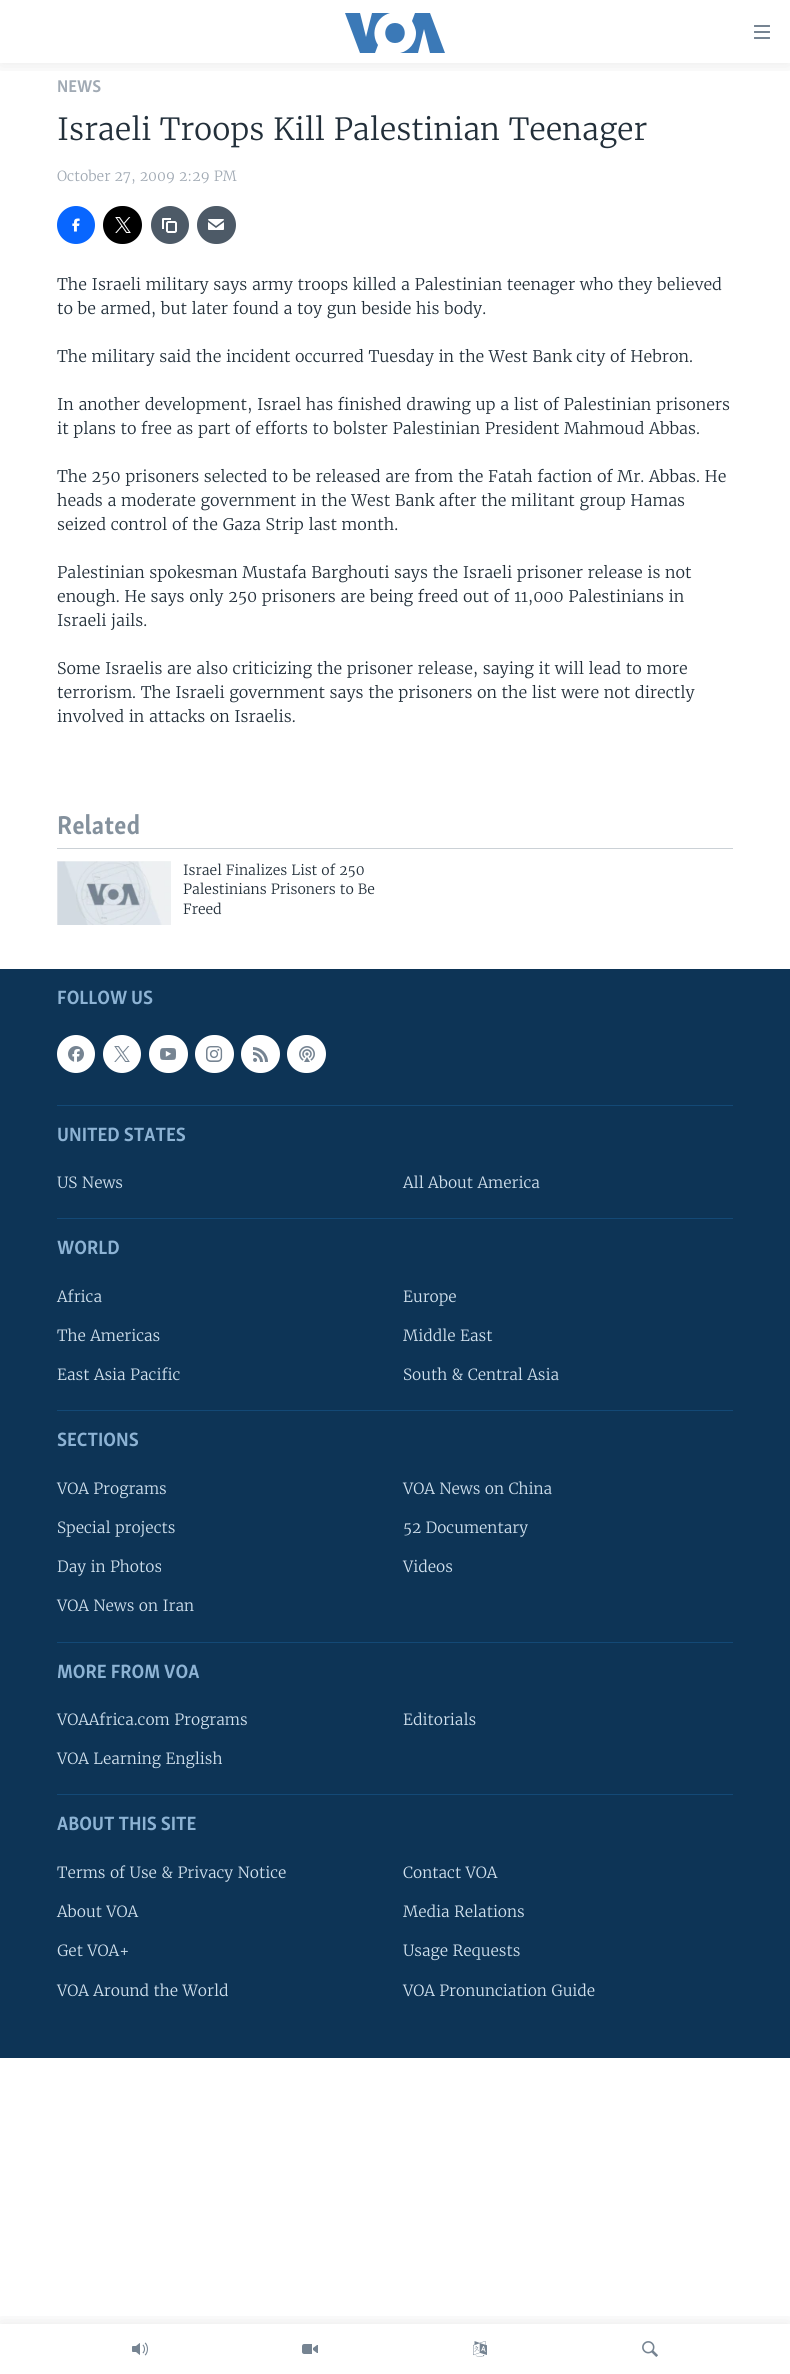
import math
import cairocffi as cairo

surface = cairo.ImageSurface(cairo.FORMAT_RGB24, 790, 2374)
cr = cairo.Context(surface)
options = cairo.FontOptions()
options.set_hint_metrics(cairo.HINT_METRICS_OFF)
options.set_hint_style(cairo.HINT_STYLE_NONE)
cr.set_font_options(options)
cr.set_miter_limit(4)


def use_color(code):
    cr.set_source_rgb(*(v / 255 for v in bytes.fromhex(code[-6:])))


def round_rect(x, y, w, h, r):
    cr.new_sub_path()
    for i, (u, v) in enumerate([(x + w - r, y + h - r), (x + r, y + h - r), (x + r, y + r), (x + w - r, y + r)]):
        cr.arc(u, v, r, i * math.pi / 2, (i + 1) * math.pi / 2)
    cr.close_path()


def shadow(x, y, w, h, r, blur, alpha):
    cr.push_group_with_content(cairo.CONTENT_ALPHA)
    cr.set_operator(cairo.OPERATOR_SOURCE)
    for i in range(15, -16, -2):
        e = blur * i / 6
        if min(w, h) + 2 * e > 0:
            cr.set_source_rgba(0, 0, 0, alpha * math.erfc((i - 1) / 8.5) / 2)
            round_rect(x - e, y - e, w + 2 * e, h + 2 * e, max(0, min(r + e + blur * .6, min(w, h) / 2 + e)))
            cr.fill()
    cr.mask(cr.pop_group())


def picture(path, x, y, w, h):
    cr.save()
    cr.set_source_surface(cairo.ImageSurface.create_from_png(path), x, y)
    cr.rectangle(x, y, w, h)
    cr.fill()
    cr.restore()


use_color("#ffffff")
cr.paint()
cr.save()
cr.rectangle(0, 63, 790, 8)
cr.clip()
use_color("#000000")
shadow(0, 0, 790, 63, 0, 10, 0.1)
cr.restore()
use_color("#3b79b7")
cr.new_path()
cr.move_to(378, 45)
cr.line_to(375, 53)
cr.line_to(360, 53)
cr.line_to(345, 13)
cr.line_to(360, 13)
cr.line_to(366, 37)
cr.line_to(372, 13)
cr.line_to(390, 13)
cr.curve_to(376, 17, 370, 33, 378, 45)
cr.close_path()
cr.move_to(395, 23)
cr.curve_to(382, 23, 382, 43, 395, 43)
cr.curve_to(408, 43, 408, 23, 395, 23)
cr.close_path()
cr.move_to(416, 33)
cr.curve_to(416, 43, 409, 51, 400, 53)
cr.line_to(418, 53)
cr.line_to(424, 29)
cr.line_to(430, 53)
cr.line_to(445, 53)
cr.line_to(430, 13)
cr.line_to(415, 13)
cr.line_to(412, 21)
cr.curve_to(414, 25, 416, 29, 416, 33)
cr.close_path()
cr.fill()
picture("img1.png", 754, 25, 16, 14)
cr.save()
cr.rectangle(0, 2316, 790, 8)
cr.clip()
use_color("#000000")
shadow(0, 2324, 790, 50, 0, 10, 0.1)
cr.restore()
picture("img2.png", 132, 2342, 16, 14)
picture("img3.png", 302, 2344, 16, 10)
picture("img4.png", 473, 2341, 14, 16)
picture("img5.png", 642, 2341, 16, 16)
cr.select_font_face("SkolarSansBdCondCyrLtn", cairo.FONT_SLANT_NORMAL, cairo.FONT_WEIGHT_BOLD)
cr.set_font_size(17.5)
use_color("#a1aab4")
cr.move_to(57, 92)
cr.show_text("NEWS")
cr.select_font_face("Merriweather Light")
cr.set_font_size(30.4)
use_color("#222f3a")
cr.move_to(57, 140)
cr.show_text("Israeli Troops Kill Palestinian Teenager")
cr.set_font_size(14)
use_color("#a1aab4")
cr.move_to(57, 181)
cr.show_text("October 27, 2009 2:29 PM")
use_color("#0866ff")
cr.new_path()
cr.arc(76, 225, 19, 0, 2 * math.pi)
cr.fill()
picture("img6.png", 72, 218, 8, 14)
use_color("#000000")
round_rect(103, 206, 39, 38, 19)
cr.fill()
picture("img7.png", 115, 217, 16, 16)
use_color("#4d5a67")
cr.arc(170, 225, 19, 0, 2 * math.pi)
cr.fill()
picture("img8.png", 162, 218, 15, 15)
round_rect(197, 206, 39, 38, 19)
cr.fill()
picture("img9.png", 208, 219, 16, 11)
cr.set_font_size(16)
use_color("#222f3a")
cr.move_to(57, 290)
cr.show_text("The Israeli military says army troops killed a Palestinian teenager who they believed")
cr.move_to(57, 314)
cr.show_text("to be armed, but later found a toy gun beside his body.")
cr.move_to(57, 362)
cr.show_text("The military said the incident occurred Tuesday in the West Bank city of Hebron.")
cr.move_to(57, 410)
cr.show_text("In another development, Israel has finished drawing up a list of Palestinian prisoners")
cr.move_to(57, 434)
cr.show_text("it plans to free as part of efforts to bolster Palestinian President Mahmoud Abbas.")
cr.move_to(57, 482)
cr.show_text("The 250 prisoners selected to be released are from the Fatah faction of Mr. Abbas. He")
cr.move_to(57, 506)
cr.show_text("heads a moderate government in the West Bank after the militant group Hamas")
cr.move_to(57, 530)
cr.show_text("seized control of the Gaza Strip last month.")
cr.move_to(57, 578)
cr.show_text("Palestinian spokesman Mustafa Barghouti says the Israeli prisoner release is not")
cr.move_to(57, 602)
cr.show_text("enough. He says only 250 prisoners are being freed out of 11,000 Palestinians in")
cr.move_to(57, 626)
cr.show_text("Israeli jails.")
cr.move_to(57, 674)
cr.show_text("Some Israelis are also criticizing the prisoner release, saying it will lead to more")
cr.move_to(57, 698)
cr.show_text("terrorism. The Israeli government says the prisoners on the list were not directly")
cr.move_to(57, 722)
cr.show_text("involved in attacks on Israelis.")
use_color("#cbd1d6")
cr.rectangle(57, 848, 676, 1)
cr.fill()
cr.select_font_face("SkolarSansBdCondCyrLtn", cairo.FONT_SLANT_NORMAL, cairo.FONT_WEIGHT_BOLD)
cr.set_font_size(26.5)
use_color("#84919d")
cr.move_to(57, 834)
cr.show_text("Related")
use_color("#f6f7f8")
cr.rectangle(57, 861, 114, 64)
cr.fill()
picture("img10.png", 57, 861, 114, 64)
cr.select_font_face("Merriweather Light")
cr.set_font_size(14)
use_color("#222f3a")
cr.move_to(183, 875)
cr.show_text("Israel Finalizes List of 250")
cr.move_to(183, 894)
cr.show_text("Palestinians Prisoners to Be")
cr.move_to(183, 914)
cr.show_text("Freed")
use_color("#0d3456")
cr.rectangle(0, 969, 790, 1089)
cr.fill()
cr.select_font_face("SkolarSansBdCondCyrLtn", cairo.FONT_SLANT_NORMAL, cairo.FONT_WEIGHT_BOLD)
cr.set_font_size(19.75)
use_color("#8db3d4")
cr.move_to(57, 1004)
cr.show_text("FOLLOW US")
use_color("#ffffff")
cr.new_path()
cr.arc(76, 1054, 19, 0, 2 * math.pi)
cr.fill()
picture("img11.png", 68, 1046, 16, 16)
cr.arc(122, 1054, 19, 0, 2 * math.pi)
cr.fill()
picture("img12.png", 114, 1046, 16, 16)
round_rect(149, 1035, 39, 38, 19)
cr.fill()
picture("img13.png", 160, 1048, 16, 12)
round_rect(195, 1035, 39, 38, 19)
cr.fill()
picture("img14.png", 206, 1046, 17, 16)
round_rect(241, 1035, 39, 38, 19)
cr.fill()
picture("img15.png", 253, 1047, 15, 15)
round_rect(287, 1035, 39, 38, 19)
cr.fill()
picture("img16.png", 299, 1046, 16, 16)
use_color("#134976")
cr.rectangle(57, 1105, 676, 1)
cr.fill()
use_color("#8db3d4")
cr.move_to(57, 1141)
cr.show_text("UNITED STATES")
cr.select_font_face("Merriweather Light")
cr.set_font_size(15.4)
use_color("#d1e1ee")
cr.move_to(57, 1188)
cr.show_text("US News")
cr.move_to(403, 1188)
cr.show_text("All About America")
use_color("#134976")
cr.rectangle(57, 1218, 676, 1)
cr.fill()
cr.select_font_face("SkolarSansBdCondCyrLtn", cairo.FONT_SLANT_NORMAL, cairo.FONT_WEIGHT_BOLD)
cr.set_font_size(19.75)
use_color("#8db3d4")
cr.move_to(57, 1254)
cr.show_text("WORLD")
cr.select_font_face("Merriweather Light")
cr.set_font_size(15.4)
use_color("#d1e1ee")
cr.move_to(57, 1302)
cr.show_text("Africa")
cr.move_to(403, 1302)
cr.show_text("Europe")
cr.move_to(57, 1341)
cr.show_text("The Americas")
cr.move_to(403, 1341)
cr.show_text("Middle East")
cr.move_to(57, 1380)
cr.show_text("East Asia Pacific")
cr.move_to(403, 1380)
cr.show_text("South & Central Asia")
use_color("#134976")
cr.rectangle(57, 1410, 676, 1)
cr.fill()
cr.select_font_face("SkolarSansBdCondCyrLtn", cairo.FONT_SLANT_NORMAL, cairo.FONT_WEIGHT_BOLD)
cr.set_font_size(19.75)
use_color("#8db3d4")
cr.move_to(57, 1446)
cr.show_text("SECTIONS")
cr.select_font_face("Merriweather Light")
cr.set_font_size(15.4)
use_color("#d1e1ee")
cr.move_to(57, 1494)
cr.show_text("VOA Programs")
cr.move_to(403, 1494)
cr.show_text("VOA News on China")
cr.move_to(57, 1533)
cr.show_text("Special projects")
cr.move_to(403, 1533)
cr.show_text("52 Documentary")
cr.move_to(57, 1572)
cr.show_text("Day in Photos")
cr.move_to(403, 1572)
cr.show_text("Videos")
cr.move_to(57, 1611)
cr.show_text("VOA News on Iran")
use_color("#134976")
cr.rectangle(57, 1642, 676, 1)
cr.fill()
cr.select_font_face("SkolarSansBdCondCyrLtn", cairo.FONT_SLANT_NORMAL, cairo.FONT_WEIGHT_BOLD)
cr.set_font_size(19.75)
use_color("#8db3d4")
cr.move_to(57, 1678)
cr.show_text("MORE FROM VOA")
cr.select_font_face("Merriweather Light")
cr.set_font_size(15.4)
use_color("#d1e1ee")
cr.move_to(57, 1725)
cr.show_text("VOAAfrica.com Programs")
cr.move_to(403, 1725)
cr.show_text("Editorials")
cr.move_to(57, 1764)
cr.show_text("VOA Learning English")
use_color("#134976")
cr.rectangle(57, 1794, 676, 1)
cr.fill()
cr.select_font_face("SkolarSansBdCondCyrLtn", cairo.FONT_SLANT_NORMAL, cairo.FONT_WEIGHT_BOLD)
cr.set_font_size(19.75)
use_color("#8db3d4")
cr.move_to(57, 1830)
cr.show_text("ABOUT THIS SITE")
cr.select_font_face("Merriweather Light")
cr.set_font_size(15.4)
use_color("#d1e1ee")
cr.move_to(57, 1878)
cr.show_text("Terms of Use & Privacy Notice")
cr.move_to(403, 1878)
cr.show_text("Contact VOA")
cr.move_to(57, 1917)
cr.show_text("About VOA")
cr.move_to(403, 1917)
cr.show_text("Media Relations")
cr.move_to(57, 1956)
cr.show_text("Get VOA+")
cr.move_to(403, 1956)
cr.show_text("Usage Requests")
cr.move_to(57, 1996)
cr.show_text("VOA Around the World")
cr.move_to(403, 1996)
cr.show_text("VOA Pronunciation Guide")
surface.write_to_png("result.png")
